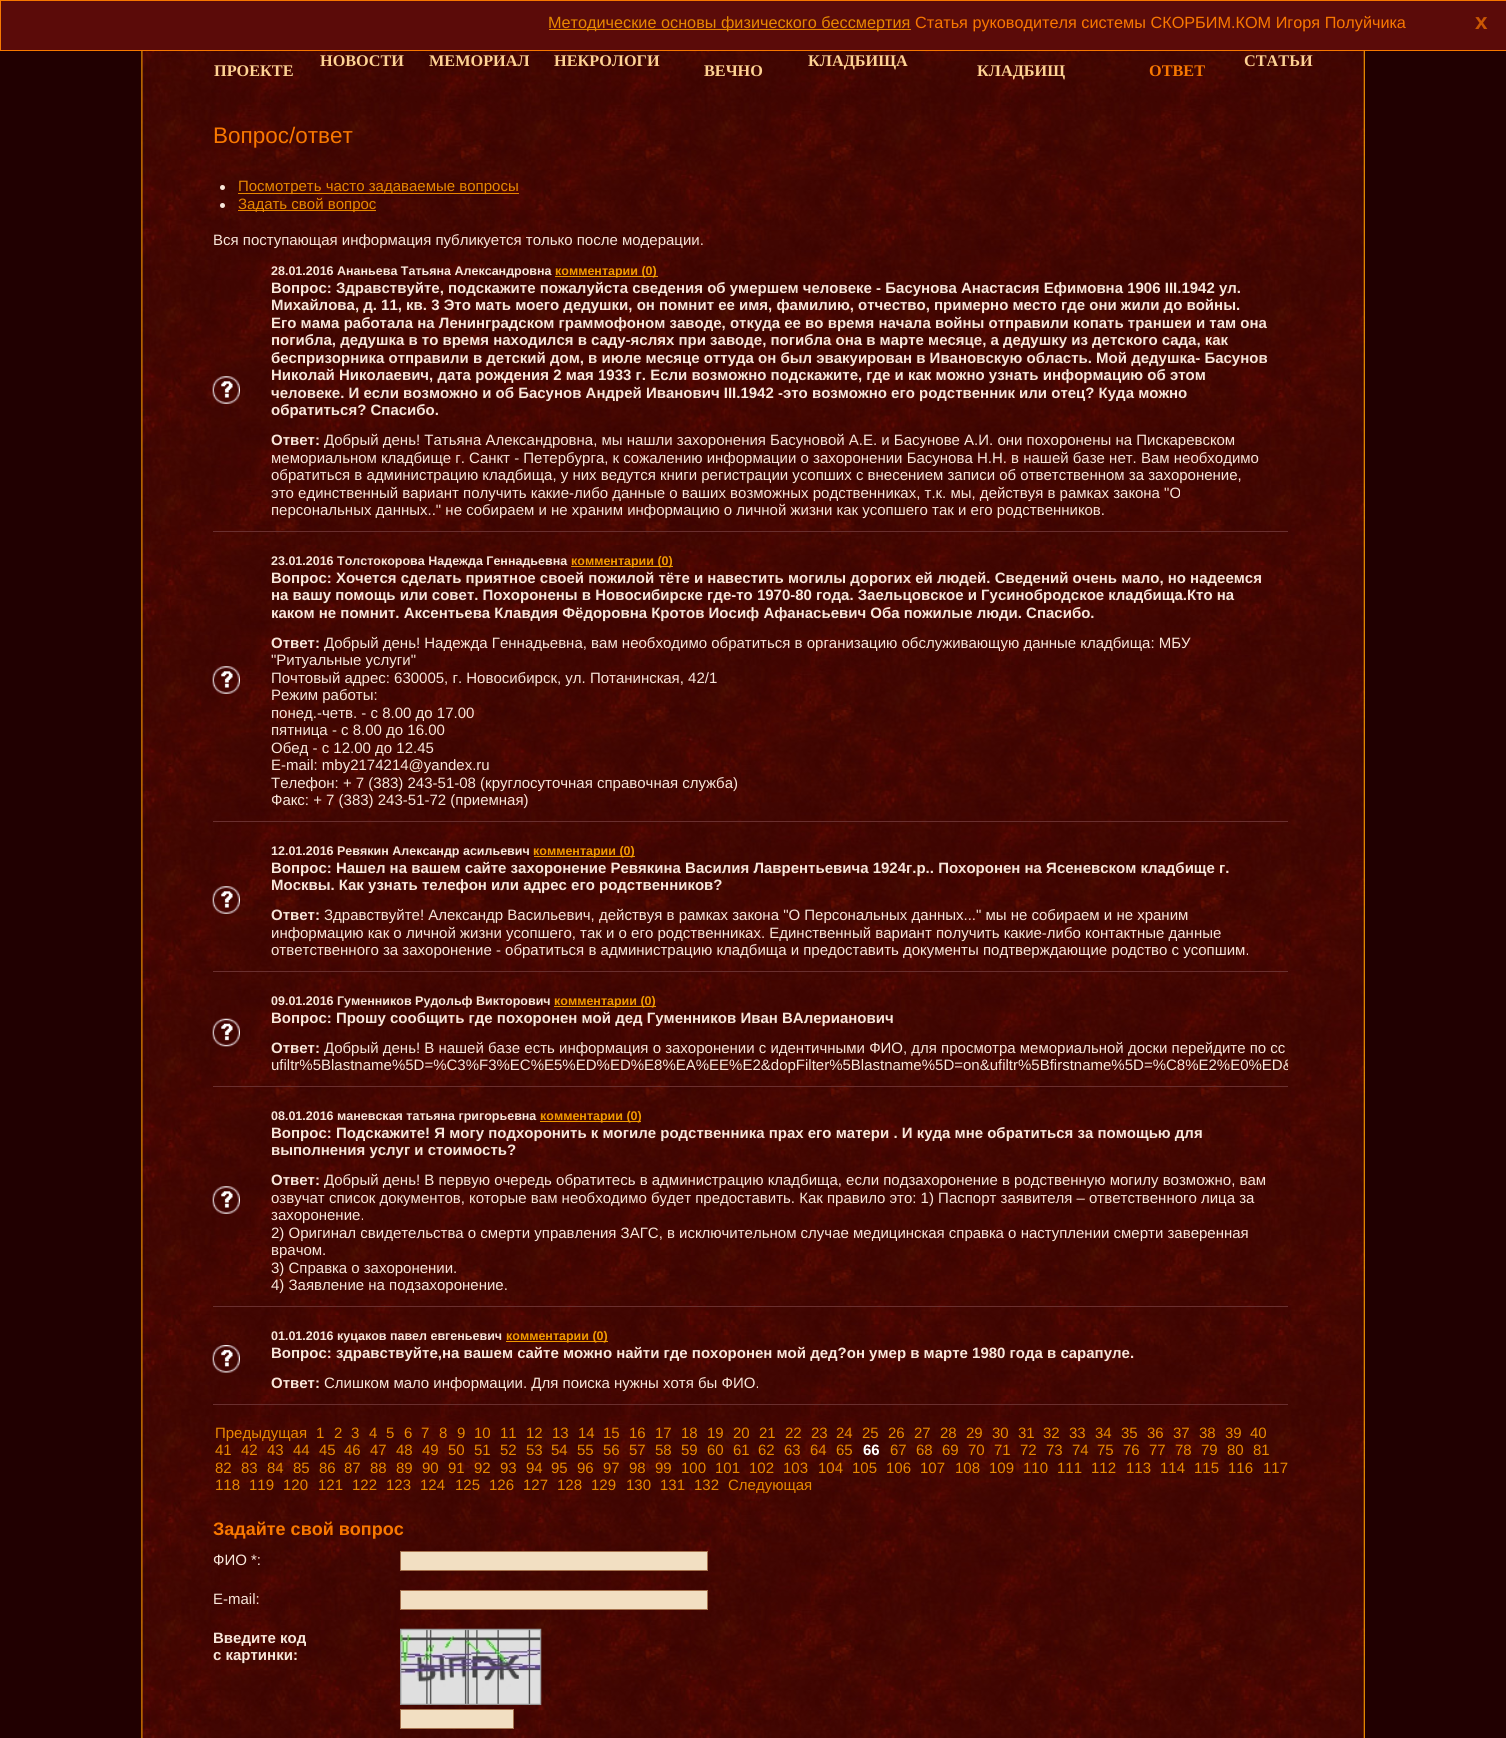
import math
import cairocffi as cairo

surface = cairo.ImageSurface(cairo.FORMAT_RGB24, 1506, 1738)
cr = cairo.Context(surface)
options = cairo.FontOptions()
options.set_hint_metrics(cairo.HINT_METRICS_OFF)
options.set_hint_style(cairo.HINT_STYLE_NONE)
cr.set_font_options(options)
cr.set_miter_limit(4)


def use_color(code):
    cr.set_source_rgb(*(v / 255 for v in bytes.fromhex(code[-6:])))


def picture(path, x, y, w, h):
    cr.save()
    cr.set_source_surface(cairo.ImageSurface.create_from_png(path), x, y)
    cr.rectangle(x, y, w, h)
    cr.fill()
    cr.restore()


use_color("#210001")
cr.paint()
picture("img1.png", 141, 51, 1224, 1687)
use_color("#5b0b09")
cr.rectangle(0.5, 0.5, 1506, 50)
cr.fill_preserve()
use_color("#f97800")
cr.set_line_width(1)
cr.stroke()
use_color("#e88800")
cr.rectangle(549, 29, 362, 1)
cr.fill()
cr.select_font_face("Liberation Sans")
cr.set_font_size(16.25)
cr.move_to(548, 28)
cr.show_text("Методические основы физического бессмертия")
use_color("#f97800")
cr.move_to(915, 28)
cr.show_text("Статья руководителя системы СКОРБИМ.КОМ Игоря Полуйчика")
cr.select_font_face("Liberation Sans", cairo.FONT_SLANT_NORMAL, cairo.FONT_WEIGHT_BOLD)
cr.set_font_size(22.5)
use_color("#ca5703")
cr.move_to(1475, 29)
cr.show_text("x")
picture("img2.png", 925, 51, 334, 10)
cr.select_font_face("Liberation Serif", cairo.FONT_SLANT_NORMAL, cairo.FONT_WEIGHT_BOLD)
cr.set_font_size(16.25)
use_color("#fed293")
cr.move_to(320, 66)
cr.show_text("НОВОСТИ")
cr.move_to(429, 66)
cr.show_text("МЕМОРИАЛ")
cr.move_to(554, 66)
cr.show_text("НЕКРОЛОГИ")
cr.move_to(808, 66)
cr.show_text("КЛАДБИЩА")
cr.move_to(1244, 66)
cr.show_text("СТАТЬИ")
cr.move_to(214, 76)
cr.show_text("ПРОЕКТЕ")
cr.move_to(704, 76)
cr.show_text("ВЕЧНО")
cr.move_to(977, 76)
cr.show_text("КЛАДБИЩ")
use_color("#f97800")
cr.move_to(1149, 76)
cr.show_text("ОТВЕТ")
cr.select_font_face("Liberation Sans")
cr.set_font_size(22.5)
cr.move_to(213, 143)
cr.show_text("Вопрос/ответ")
use_color("#f9e7da")
cr.new_path()
cr.arc(222.5, 187.5, 2.5, 0, 2 * math.pi)
cr.fill()
use_color("#e88800")
cr.rectangle(238, 193, 281, 1)
cr.fill()
cr.set_font_size(15)
cr.move_to(238, 191)
cr.show_text("Посмотреть часто задаваемые вопросы")
use_color("#f9e7da")
cr.new_path()
cr.arc(222.5, 205.5, 2.5, 0, 2 * math.pi)
cr.fill()
use_color("#e88800")
cr.rectangle(238, 210, 138, 1)
cr.fill()
cr.move_to(238, 209)
cr.show_text("Задать свой вопрос")
use_color("#f9e7da")
cr.move_to(213, 245)
cr.show_text("Вся поступающая информация публикуется только после модерации.")
use_color("#6a2f2f")
cr.rectangle(213, 531, 1075, 1)
cr.fill()
picture("img3.png", 212, 376, 28, 28)
cr.select_font_face("Liberation Sans", cairo.FONT_SLANT_NORMAL, cairo.FONT_WEIGHT_BOLD)
cr.set_font_size(12.5)
use_color("#f9e7da")
cr.move_to(271, 275)
cr.show_text("28.01.2016 Ананьева Татьяна Александровна")
use_color("#f29a00")
cr.rectangle(555, 276, 103, 1)
cr.fill()
cr.move_to(555, 275)
cr.show_text("комментарии (0)")
cr.set_font_size(15)
use_color("#f9e7da")
cr.move_to(271, 293)
cr.show_text("Вопрос: Здравствуйте, подскажите пожалуйста сведения об умершем человеке - Басунова Анастасия Ефимовна 1906 III.1942 ул.")
cr.move_to(271, 310)
cr.show_text("Михайлова, д. 11, кв. 3 Это мать моего дедушки, он помнит ее имя, фамилию, отчество, примерно место где они жили до войны.")
cr.move_to(271, 328)
cr.show_text("Его мама работала на Ленинградском граммофоном заводе, откуда ее во время начала войны отправили копать траншеи и там она")
cr.move_to(271, 345)
cr.show_text("погибла, дедушка в то время находился в саду-яслях при заводе, погибла она в марте месяце, а дедушку из детского сада, как")
cr.move_to(271, 363)
cr.show_text("беспризорника отправили в детский дом, в июле месяце оттуда он был эвакуирован в Ивановскую область. Мой дедушка- Басунов")
cr.move_to(271, 380)
cr.show_text("Николай Николаевич, дата рождения 2 мая 1933 г. Если возможно подскажите, где и как можно узнать информацию об этом")
cr.move_to(271, 398)
cr.show_text("человеке. И если возможно и об Басунов Андрей Иванович III.1942 -это возможно его родственник или отец? Куда можно")
cr.move_to(271, 415)
cr.show_text("обратиться? Спасибо.")
cr.move_to(271, 445)
cr.show_text("Ответ:")
cr.select_font_face("Liberation Sans")
cr.move_to(324, 445)
cr.show_text("Добрый день! Татьяна Александровна, мы нашли захоронения Басуновой А.Е. и Басунове А.И. они похоронены на Пискаревском")
cr.move_to(271, 463)
cr.show_text("мемориальном кладбище г. Санкт - Петербурга, к сожалению информации о захоронении Басунова Н.Н. в нашей базе нет. Вам необходимо")
cr.move_to(271, 480)
cr.show_text("обратиться в администрацию кладбища, у них ведутся книги регистрации усопших с внесением записи об ответственном за захоронение,")
cr.move_to(271, 498)
cr.show_text("это единственный вариант получить какие-либо данные о ваших возможных родственниках, т.к. мы, действуя в рамках закона \"О")
cr.move_to(271, 515)
cr.show_text("персональных данных..\" не собираем и не храним информацию о личной жизни как усопшего так и его родственников.")
use_color("#6a2f2f")
cr.rectangle(213, 821, 1075, 1)
cr.fill()
picture("img4.png", 212, 666, 28, 28)
cr.select_font_face("Liberation Sans", cairo.FONT_SLANT_NORMAL, cairo.FONT_WEIGHT_BOLD)
cr.set_font_size(12.5)
use_color("#f9e7da")
cr.move_to(271, 565)
cr.show_text("23.01.2016 Толстокорова Надежда Геннадьевна")
use_color("#f29a00")
cr.rectangle(571, 566, 102, 1)
cr.fill()
cr.move_to(571, 565)
cr.show_text("комментарии (0)")
cr.set_font_size(15)
use_color("#f9e7da")
cr.move_to(271, 583)
cr.show_text("Вопрос: Хочется сделать приятное своей пожилой тёте и навестить могилы дорогих ей людей. Сведений очень мало, но надеемся")
cr.move_to(271, 600)
cr.show_text("на вашу помощь или совет. Похоронены в Новосибирске где-то 1970-80 года. Заельцовское и Гусинобродское кладбища.Кто на")
cr.move_to(271, 618)
cr.show_text("каком не помнит. Аксентьева Клавдия Фёдоровна Кротов Иосиф Афанасьевич Оба пожилые люди. Спасибо.")
cr.move_to(271, 648)
cr.show_text("Ответ:")
cr.select_font_face("Liberation Sans")
cr.move_to(324, 648)
cr.show_text("Добрый день! Надежда Геннадьевна, вам необходимо обратиться в организацию обслуживающую данные кладбища: МБУ")
cr.move_to(271, 665)
cr.show_text("\"Ритуальные услуги\"")
cr.move_to(271, 683)
cr.show_text("Почтовый адрес: 630005, г. Новосибирск, ул. Потанинская, 42/1")
cr.move_to(271, 700)
cr.show_text("Режим работы:")
cr.move_to(271, 718)
cr.show_text("понед.-четв. - с 8.00 до 17.00")
cr.move_to(271, 735)
cr.show_text("пятница - с 8.00 до 16.00")
cr.move_to(271, 753)
cr.show_text("Обед - с 12.00 до 12.45")
cr.move_to(271, 770)
cr.show_text("E-mail: mby2174214@yandex.ru")
cr.move_to(271, 788)
cr.show_text("Телефон: + 7 (383) 243-51-08 (круглосуточная справочная служба)")
cr.move_to(271, 805)
cr.show_text("Факс: + 7 (383) 243-51-72 (приемная)")
use_color("#6a2f2f")
cr.rectangle(213, 971, 1075, 1)
cr.fill()
picture("img5.png", 212, 886, 28, 28)
cr.select_font_face("Liberation Sans", cairo.FONT_SLANT_NORMAL, cairo.FONT_WEIGHT_BOLD)
cr.set_font_size(12.5)
use_color("#f9e7da")
cr.move_to(271, 855)
cr.show_text("12.01.2016 Ревякин Александр асильевич")
use_color("#f29a00")
cr.rectangle(534, 856, 101, 1)
cr.fill()
cr.move_to(533, 855)
cr.show_text("комментарии (0)")
cr.set_font_size(15)
use_color("#f9e7da")
cr.move_to(271, 873)
cr.show_text("Вопрос: Нашел на вашем сайте захоронение Ревякина Василия Лаврентьевича 1924г.р.. Похоронен на Ясеневском кладбище г.")
cr.move_to(271, 890)
cr.show_text("Москвы. Как узнать телефон или адрес его родственников?")
cr.move_to(271, 920)
cr.show_text("Ответ:")
cr.select_font_face("Liberation Sans")
cr.move_to(324, 920)
cr.show_text("Здравствуйте! Александр Васильевич, действуя в рамках закона \"О Персональных данных...\" мы не собираем и не храним")
cr.move_to(271, 938)
cr.show_text("информацию как о личной жизни усопшего, так и о его родственниках. Единственный вариант получить какие-либо контактные данные")
cr.move_to(271, 955)
cr.show_text("ответственного за захоронение - обратиться в администрацию кладбища и предоставить документы подтверждающие родство с усопшим.")
use_color("#6a2f2f")
cr.rectangle(213, 1086, 1075, 1)
cr.fill()
picture("img6.png", 212, 1018, 28, 29)
cr.select_font_face("Liberation Sans", cairo.FONT_SLANT_NORMAL, cairo.FONT_WEIGHT_BOLD)
cr.set_font_size(12.5)
use_color("#f9e7da")
cr.move_to(271, 1005)
cr.show_text("09.01.2016 Гуменников Рудольф Викторович")
use_color("#f29a00")
cr.rectangle(554, 1006, 102, 1)
cr.fill()
cr.move_to(554, 1005)
cr.show_text("комментарии (0)")
cr.set_font_size(15)
use_color("#f9e7da")
cr.move_to(271, 1023)
cr.show_text("Вопрос: Прошу сообщить где похоронен мой дед Гуменников Иван ВАлерианович")
cr.move_to(271, 1053)
cr.show_text("Ответ:")
cr.select_font_face("Liberation Sans")
cr.move_to(324, 1053)
cr.show_text("Добрый день! В нашей базе есть информация о захоронении с идентичными ФИО, для просмотра мемориальной доски перейдите по сс")
cr.save()
cr.rectangle(213, 991, 1075, 95)
cr.clip()
cr.move_to(271, 1070)
cr.show_text("ufiltr%5Blastname%5D=%C3%F3%EC%E5%ED%ED%E8%EA%EE%E2&dopFilter%5Blastname%5D=on&ufiltr%5Bfirstname%5D=%C8%E2%E0%ED&")
cr.restore()
use_color("#6a2f2f")
cr.rectangle(213, 1306, 1075, 1)
cr.fill()
picture("img7.png", 212, 1186, 28, 28)
cr.select_font_face("Liberation Sans", cairo.FONT_SLANT_NORMAL, cairo.FONT_WEIGHT_BOLD)
cr.set_font_size(12.5)
use_color("#f9e7da")
cr.move_to(271, 1120)
cr.show_text("08.01.2016 маневская татьяна григорьевна")
use_color("#f29a00")
cr.rectangle(540, 1121, 101, 1)
cr.fill()
cr.move_to(540, 1120)
cr.show_text("комментарии (0)")
cr.set_font_size(15)
use_color("#f9e7da")
cr.move_to(271, 1138)
cr.show_text("Вопрос: Подскажите! Я могу подхоронить к могиле родственника прах его матери . И куда мне обратиться за помощью для")
cr.move_to(271, 1155)
cr.show_text("выполнения услуг и стоимость?")
cr.move_to(271, 1185)
cr.show_text("Ответ:")
cr.select_font_face("Liberation Sans")
cr.move_to(324, 1185)
cr.show_text("Добрый день! В первую очередь обратитесь в администрацию кладбища, если подзахоронение в родственную могилу возможно, вам")
cr.move_to(271, 1203)
cr.show_text("озвучат список документов, которые вам необходимо будет предоставить. Как правило это: 1) Паспорт заявителя – ответственного лица за")
cr.move_to(271, 1220)
cr.show_text("захоронение.")
cr.move_to(271, 1238)
cr.show_text("2) Оригинал свидетельства о смерти управления ЗАГС, в исключительном случае медицинская справка о наступлении смерти заверенная")
cr.move_to(271, 1255)
cr.show_text("врачом.")
cr.move_to(271, 1273)
cr.show_text("3) Справка о захоронении.")
cr.move_to(271, 1290)
cr.show_text("4) Заявление на подзахоронение.")
use_color("#6a2f2f")
cr.rectangle(213, 1404, 1075, 1)
cr.fill()
picture("img8.png", 212, 1345, 28, 28)
cr.select_font_face("Liberation Sans", cairo.FONT_SLANT_NORMAL, cairo.FONT_WEIGHT_BOLD)
cr.set_font_size(12.5)
use_color("#f9e7da")
cr.move_to(271, 1340)
cr.show_text("01.01.2016 куцаков павел евгеньевич")
use_color("#f29a00")
cr.rectangle(506, 1341, 102, 1)
cr.fill()
cr.move_to(506, 1340)
cr.show_text("комментарии (0)")
cr.set_font_size(15)
use_color("#f9e7da")
cr.move_to(271, 1358)
cr.show_text("Вопрос: здравствуйте,на вашем сайте можно найти где похоронен мой дед?он умер в марте 1980 года в сарапуле.")
cr.move_to(271, 1388)
cr.show_text("Ответ:")
cr.select_font_face("Liberation Sans")
cr.move_to(324, 1388)
cr.show_text("Слишком мало информации. Для поиска нужны хотя бы ФИО.")
use_color("#e88800")
cr.move_to(215, 1438)
cr.show_text("Предыдущая")
cr.move_to(316, 1438)
cr.show_text("1")
cr.move_to(334, 1438)
cr.show_text("2")
cr.move_to(351, 1438)
cr.show_text("3")
cr.move_to(369, 1438)
cr.show_text("4")
cr.move_to(386, 1438)
cr.show_text("5")
cr.move_to(404, 1438)
cr.show_text("6")
cr.move_to(421, 1438)
cr.show_text("7")
cr.move_to(439, 1438)
cr.show_text("8")
cr.move_to(457, 1438)
cr.show_text("9")
cr.move_to(474, 1438)
cr.show_text("10")
cr.move_to(500, 1438)
cr.show_text("11")
cr.move_to(526, 1438)
cr.show_text("12")
cr.move_to(552, 1438)
cr.show_text("13")
cr.move_to(578, 1438)
cr.show_text("14")
cr.move_to(603, 1438)
cr.show_text("15")
cr.move_to(629, 1438)
cr.show_text("16")
cr.move_to(655, 1438)
cr.show_text("17")
cr.move_to(681, 1438)
cr.show_text("18")
cr.move_to(707, 1438)
cr.show_text("19")
cr.move_to(733, 1438)
cr.show_text("20")
cr.move_to(759, 1438)
cr.show_text("21")
cr.move_to(785, 1438)
cr.show_text("22")
cr.move_to(811, 1438)
cr.show_text("23")
cr.move_to(836, 1438)
cr.show_text("24")
cr.move_to(862, 1438)
cr.show_text("25")
cr.move_to(888, 1438)
cr.show_text("26")
cr.move_to(914, 1438)
cr.show_text("27")
cr.move_to(940, 1438)
cr.show_text("28")
cr.move_to(966, 1438)
cr.show_text("29")
cr.move_to(992, 1438)
cr.show_text("30")
cr.move_to(1018, 1438)
cr.show_text("31")
cr.move_to(1043, 1438)
cr.show_text("32")
cr.move_to(1069, 1438)
cr.show_text("33")
cr.move_to(1095, 1438)
cr.show_text("34")
cr.move_to(1121, 1438)
cr.show_text("35")
cr.move_to(1147, 1438)
cr.show_text("36")
cr.move_to(1173, 1438)
cr.show_text("37")
cr.move_to(1199, 1438)
cr.show_text("38")
cr.move_to(1225, 1438)
cr.show_text("39")
cr.move_to(1250, 1438)
cr.show_text("40")
cr.move_to(215, 1455)
cr.show_text("41")
cr.move_to(241, 1455)
cr.show_text("42")
cr.move_to(267, 1455)
cr.show_text("43")
cr.move_to(293, 1455)
cr.show_text("44")
cr.move_to(319, 1455)
cr.show_text("45")
cr.move_to(344, 1455)
cr.show_text("46")
cr.move_to(370, 1455)
cr.show_text("47")
cr.move_to(396, 1455)
cr.show_text("48")
cr.move_to(422, 1455)
cr.show_text("49")
cr.move_to(448, 1455)
cr.show_text("50")
cr.move_to(474, 1455)
cr.show_text("51")
cr.move_to(500, 1455)
cr.show_text("52")
cr.move_to(526, 1455)
cr.show_text("53")
cr.move_to(551, 1455)
cr.show_text("54")
cr.move_to(577, 1455)
cr.show_text("55")
cr.move_to(603, 1455)
cr.show_text("56")
cr.move_to(629, 1455)
cr.show_text("57")
cr.move_to(655, 1455)
cr.show_text("58")
cr.move_to(681, 1455)
cr.show_text("59")
cr.move_to(707, 1455)
cr.show_text("60")
cr.move_to(733, 1455)
cr.show_text("61")
cr.move_to(758, 1455)
cr.show_text("62")
cr.move_to(784, 1455)
cr.show_text("63")
cr.move_to(810, 1455)
cr.show_text("64")
cr.move_to(836, 1455)
cr.show_text("65")
cr.select_font_face("Liberation Sans", cairo.FONT_SLANT_NORMAL, cairo.FONT_WEIGHT_BOLD)
use_color("#ffffff")
cr.move_to(863, 1455)
cr.show_text("66")
cr.select_font_face("Liberation Sans")
use_color("#e88800")
cr.move_to(890, 1455)
cr.show_text("67")
cr.move_to(916, 1455)
cr.show_text("68")
cr.move_to(942, 1455)
cr.show_text("69")
cr.move_to(968, 1455)
cr.show_text("70")
cr.move_to(994, 1455)
cr.show_text("71")
cr.move_to(1020, 1455)
cr.show_text("72")
cr.move_to(1046, 1455)
cr.show_text("73")
cr.move_to(1072, 1455)
cr.show_text("74")
cr.move_to(1097, 1455)
cr.show_text("75")
cr.move_to(1123, 1455)
cr.show_text("76")
cr.move_to(1149, 1455)
cr.show_text("77")
cr.move_to(1175, 1455)
cr.show_text("78")
cr.move_to(1201, 1455)
cr.show_text("79")
cr.move_to(1227, 1455)
cr.show_text("80")
cr.move_to(1253, 1455)
cr.show_text("81")
cr.move_to(215, 1473)
cr.show_text("82")
cr.move_to(241, 1473)
cr.show_text("83")
cr.move_to(267, 1473)
cr.show_text("84")
cr.move_to(293, 1473)
cr.show_text("85")
cr.move_to(319, 1473)
cr.show_text("86")
cr.move_to(344, 1473)
cr.show_text("87")
cr.move_to(370, 1473)
cr.show_text("88")
cr.move_to(396, 1473)
cr.show_text("89")
cr.move_to(422, 1473)
cr.show_text("90")
cr.move_to(448, 1473)
cr.show_text("91")
cr.move_to(474, 1473)
cr.show_text("92")
cr.move_to(500, 1473)
cr.show_text("93")
cr.move_to(526, 1473)
cr.show_text("94")
cr.move_to(551, 1473)
cr.show_text("95")
cr.move_to(577, 1473)
cr.show_text("96")
cr.move_to(603, 1473)
cr.show_text("97")
cr.move_to(629, 1473)
cr.show_text("98")
cr.move_to(655, 1473)
cr.show_text("99")
cr.move_to(681, 1473)
cr.show_text("100")
cr.move_to(715, 1473)
cr.show_text("101")
cr.move_to(749, 1473)
cr.show_text("102")
cr.move_to(783, 1473)
cr.show_text("103")
cr.move_to(818, 1473)
cr.show_text("104")
cr.move_to(852, 1473)
cr.show_text("105")
cr.move_to(886, 1473)
cr.show_text("106")
cr.move_to(920, 1473)
cr.show_text("107")
cr.move_to(955, 1473)
cr.show_text("108")
cr.move_to(989, 1473)
cr.show_text("109")
cr.move_to(1023, 1473)
cr.show_text("110")
cr.move_to(1057, 1473)
cr.show_text("111")
cr.move_to(1091, 1473)
cr.show_text("112")
cr.move_to(1126, 1473)
cr.show_text("113")
cr.move_to(1160, 1473)
cr.show_text("114")
cr.move_to(1194, 1473)
cr.show_text("115")
cr.move_to(1228, 1473)
cr.show_text("116")
cr.move_to(1263, 1473)
cr.show_text("117")
cr.move_to(215, 1490)
cr.show_text("118")
cr.move_to(249, 1490)
cr.show_text("119")
cr.move_to(283, 1490)
cr.show_text("120")
cr.move_to(318, 1490)
cr.show_text("121")
cr.move_to(352, 1490)
cr.show_text("122")
cr.move_to(386, 1490)
cr.show_text("123")
cr.move_to(420, 1490)
cr.show_text("124")
cr.move_to(455, 1490)
cr.show_text("125")
cr.move_to(489, 1490)
cr.show_text("126")
cr.move_to(523, 1490)
cr.show_text("127")
cr.move_to(557, 1490)
cr.show_text("128")
cr.move_to(591, 1490)
cr.show_text("129")
cr.move_to(626, 1490)
cr.show_text("130")
cr.move_to(660, 1490)
cr.show_text("131")
cr.move_to(694, 1490)
cr.show_text("132")
cr.move_to(728, 1490)
cr.show_text("Следующая")
cr.select_font_face("Liberation Sans", cairo.FONT_SLANT_NORMAL, cairo.FONT_WEIGHT_BOLD)
cr.set_font_size(18)
use_color("#f97800")
cr.move_to(213, 1535)
cr.show_text("Задайте свой вопрос")
cr.select_font_face("Liberation Sans")
cr.set_font_size(15)
use_color("#f9e7da")
cr.move_to(213, 1565)
cr.show_text("ФИО *:")
use_color("#f2dfc2")
cr.rectangle(400.5, 1551.5, 307, 19)
cr.fill_preserve()
use_color("#a6724e")
cr.stroke()
use_color("#f9e7da")
cr.move_to(213, 1604)
cr.show_text("E-mail:")
use_color("#f2dfc2")
cr.rectangle(400.5, 1590.5, 307, 19)
cr.fill_preserve()
use_color("#a6724e")
cr.stroke()
cr.select_font_face("Liberation Sans", cairo.FONT_SLANT_NORMAL, cairo.FONT_WEIGHT_BOLD)
use_color("#f9e7da")
cr.move_to(213, 1643)
cr.show_text("Введите код")
cr.move_to(213, 1660)
cr.show_text("с картинки:")
picture("img9.png", 400, 1628, 142, 77)
use_color("#f2dfc2")
cr.rectangle(400.5, 1709.5, 113, 19)
cr.fill_preserve()
use_color("#a6724e")
cr.stroke()
surface.write_to_png("result.png")
